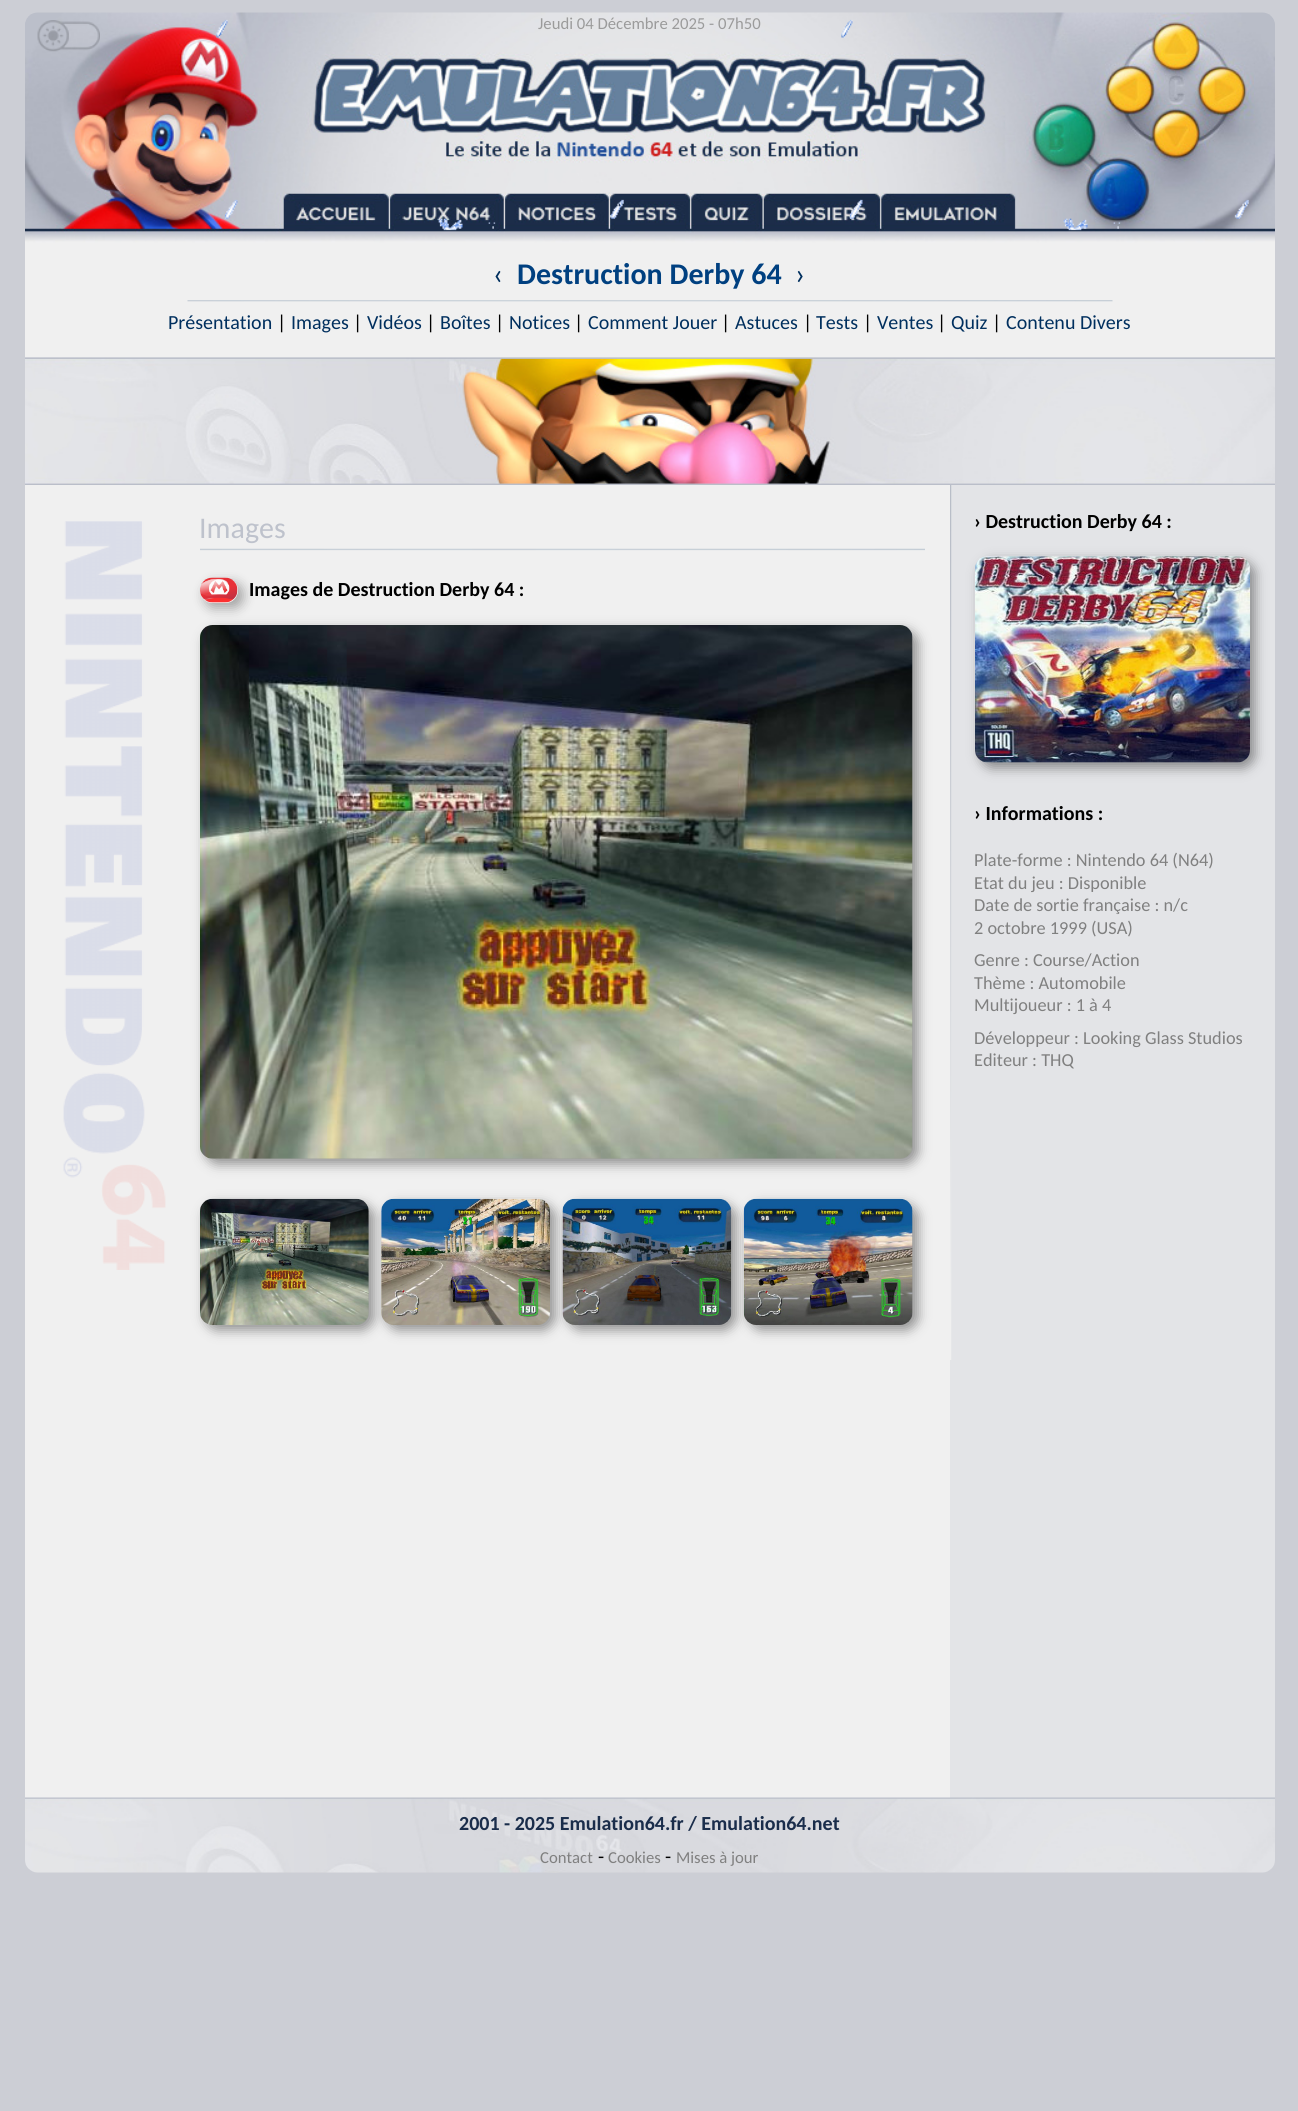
import math
import cairocffi as cairo

surface = cairo.ImageSurface(cairo.FORMAT_RGB24, 1298, 2111)
cr = cairo.Context(surface)
options = cairo.FontOptions()
options.set_hint_metrics(cairo.HINT_METRICS_OFF)
options.set_hint_style(cairo.HINT_STYLE_NONE)
cr.set_font_options(options)
cr.set_miter_limit(4)


def use_color(code):
    cr.set_source_rgb(*(v / 255 for v in bytes.fromhex(code[-6:])))


def round_rect(x, y, w, h, r):
    cr.new_sub_path()
    for i, (u, v) in enumerate([(x + w - r, y + h - r), (x + r, y + h - r), (x + r, y + r), (x + w - r, y + r)]):
        cr.arc(u, v, r, i * math.pi / 2, (i + 1) * math.pi / 2)
    cr.close_path()


def shadow(x, y, w, h, r, blur, alpha):
    cr.push_group_with_content(cairo.CONTENT_ALPHA)
    cr.set_operator(cairo.OPERATOR_SOURCE)
    for i in range(15, -16, -2):
        e = blur * i / 6
        if min(w, h) + 2 * e > 0:
            cr.set_source_rgba(0, 0, 0, alpha * math.erfc((i - 1) / 8.5) / 2)
            round_rect(x - e, y - e, w + 2 * e, h + 2 * e, max(0, min(r + e + blur * .6, min(w, h) / 2 + e)))
            cr.fill()
    cr.mask(cr.pop_group())


def picture(path, x, y, w, h):
    cr.save()
    cr.set_source_surface(cairo.ImageSurface.create_from_png(path), x, y)
    cr.rectangle(x, y, w, h)
    cr.fill()
    cr.restore()


use_color("#ccced5")
cr.paint()
picture("img2.png", 25, 12, 1250, 243)
picture("img1.png", 37, 20, 63, 32)
picture("img3.png", 216, 19, 1033, 212)
cr.select_font_face("Carlito")
cr.set_font_size(16.7)
use_color("#9b9b9b")
cr.move_to(538, 29)
cr.show_text("Jeudi 04 Décembre 2025 - 07h50")
use_color("#f0f0f0")
cr.rectangle(25, 255, 1250, 103)
cr.fill()
cr.set_font_size(30)
use_color("#002f5e")
cr.move_to(493, 284)
cr.show_text("‹")
cr.select_font_face("Carlito", cairo.FONT_SLANT_NORMAL, cairo.FONT_WEIGHT_BOLD)
use_color("#004080")
cr.move_to(517, 284)
cr.show_text("Destruction Derby 64")
cr.select_font_face("Carlito")
use_color("#002f5e")
cr.move_to(795, 284)
cr.show_text("›")
picture("img4.png", 187, 300, 926, 2)
cr.set_font_size(20)
cr.move_to(168, 329)
cr.show_text("Présentation")
use_color("#000000")
cr.move_to(277, 329)
cr.show_text("|")
use_color("#002f5e")
cr.move_to(291, 329)
cr.show_text("Images")
use_color("#000000")
cr.move_to(353, 329)
cr.show_text("|")
use_color("#002f5e")
cr.move_to(367, 329)
cr.show_text("Vidéos")
use_color("#000000")
cr.move_to(426, 329)
cr.show_text("|")
use_color("#002f5e")
cr.move_to(440, 329)
cr.show_text("Boîtes")
use_color("#000000")
cr.move_to(495, 329)
cr.show_text("|")
use_color("#002f5e")
cr.move_to(509, 329)
cr.show_text("Notices")
use_color("#000000")
cr.move_to(574, 329)
cr.show_text("|")
use_color("#002f5e")
cr.move_to(588, 329)
cr.show_text("Comment Jouer")
use_color("#000000")
cr.move_to(721, 329)
cr.show_text("|")
use_color("#002f5e")
cr.move_to(735, 329)
cr.show_text("Astuces")
use_color("#000000")
cr.move_to(803, 329)
cr.show_text("|")
use_color("#002f5e")
cr.move_to(816, 329)
cr.show_text("Tests")
use_color("#000000")
cr.move_to(863, 329)
cr.show_text("|")
use_color("#002f5e")
cr.move_to(877, 329)
cr.show_text("Ventes")
use_color("#000000")
cr.move_to(937, 329)
cr.show_text("|")
use_color("#002f5e")
cr.move_to(951, 329)
cr.show_text("Quiz")
use_color("#000000")
cr.move_to(992, 329)
cr.show_text("|")
use_color("#002f5e")
cr.move_to(1006, 329)
cr.show_text("Contenu Divers")
picture("img5.png", 25, 357, 1250, 127)
picture("img6.png", 25, 357, 1250, 2)
picture("img7.png", 25, 483, 1250, 2)
use_color("#f0f0f0")
cr.rectangle(25, 485, 925, 1313)
cr.fill()
picture("img8.png", 63, 521, 103, 749)
use_color("#e3e4e7")
cr.rectangle(950, 485, 325, 1313)
cr.fill()
picture("img9.png", 950, 485, 2, 875)
cr.set_font_size(30)
use_color("#bec2cc")
cr.move_to(199, 538)
cr.show_text("Images")
picture("img10.png", 200, 548, 725, 3)
use_color("#000000")
shadow(205, 630, 713, 534, 13, 6, 0.4)
picture("img12.png", 200, 625, 713, 534)
cr.save()
cr.set_fill_rule(cairo.FILL_RULE_EVEN_ODD)
cr.new_path()
cr.move_to(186, 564)
cr.line_to(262, 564)
cr.line_to(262, 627)
cr.line_to(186, 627)
cr.close_path()
cr.move_to(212.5, 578)
cr.line_to(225.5, 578)
cr.curve_to(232.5, 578, 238, 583.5, 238, 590.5)
cr.curve_to(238, 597.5, 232.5, 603, 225.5, 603)
cr.line_to(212.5, 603)
cr.curve_to(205.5, 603, 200, 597.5, 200, 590.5)
cr.curve_to(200, 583.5, 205.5, 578, 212.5, 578)
cr.close_path()
cr.clip()
shadow(205, 583, 38, 25, 12.5, 6, 0.32)
cr.restore()
picture("img11.png", 200, 577, 38, 26)
cr.select_font_face("Carlito", cairo.FONT_SLANT_NORMAL, cairo.FONT_WEIGHT_BOLD)
cr.set_font_size(20)
use_color("#000000")
cr.move_to(249, 596)
cr.show_text("Images de Destruction Derby 64 :")
use_color("#000000")
shadow(205, 1204, 169, 126, 13, 6, 0.4)
picture("img13.png", 200, 1198, 169, 127)
shadow(386, 1204, 169, 126, 13, 6, 0.4)
picture("img14.png", 381, 1198, 169, 127)
shadow(568, 1204, 168, 126, 13, 6, 0.4)
picture("img15.png", 562, 1198, 170, 127)
shadow(749, 1204, 169, 126, 13, 6, 0.4)
picture("img16.png", 743, 1198, 170, 127)
use_color("#000000")
cr.move_to(974, 528)
cr.show_text("› Destruction Derby 64 :")
use_color("#000000")
shadow(980, 561, 275, 207, 13, 6, 0.4)
picture("img17.png", 975, 556, 275, 207)
use_color("#000000")
cr.move_to(974, 820)
cr.show_text("› Informations :")
cr.select_font_face("Carlito")
cr.set_font_size(18.3)
use_color("#808080")
cr.move_to(974, 866)
cr.show_text("Plate-forme : Nintendo 64 (N64)")
cr.move_to(974, 889)
cr.show_text("Etat du jeu : Disponible")
cr.move_to(974, 911)
cr.show_text("Date de sortie française : n/c")
cr.move_to(974, 934)
cr.show_text("2 octobre 1999 (USA)")
cr.move_to(974, 966)
cr.show_text("Genre : Course/Action")
cr.move_to(974, 989)
cr.show_text("Thème : Automobile")
cr.move_to(974, 1011)
cr.show_text("Multijoueur : 1 à 4")
cr.move_to(974, 1044)
cr.show_text("Développeur : Looking Glass Studios")
cr.move_to(974, 1066)
cr.show_text("Editeur : THQ")
picture("img18.png", 25, 1797, 1250, 76)
cr.select_font_face("Carlito", cairo.FONT_SLANT_NORMAL, cairo.FONT_WEIGHT_BOLD)
cr.set_font_size(20)
use_color("#1a2d4b")
cr.move_to(459, 1830)
cr.show_text("2001 - 2025 Emulation64.fr / Emulation64.net")
cr.select_font_face("Carlito")
cr.set_font_size(16.7)
use_color("#808080")
cr.move_to(540, 1863)
cr.show_text("Contact")
cr.set_font_size(20)
use_color("#000000")
cr.move_to(598, 1863)
cr.show_text("-")
cr.set_font_size(16.7)
use_color("#808080")
cr.move_to(608, 1863)
cr.show_text("Cookies")
cr.set_font_size(20)
use_color("#000000")
cr.move_to(665, 1863)
cr.show_text("-")
cr.set_font_size(16.7)
use_color("#808080")
cr.move_to(676, 1863)
cr.show_text("Mises à jour")
surface.write_to_png("result.png")
